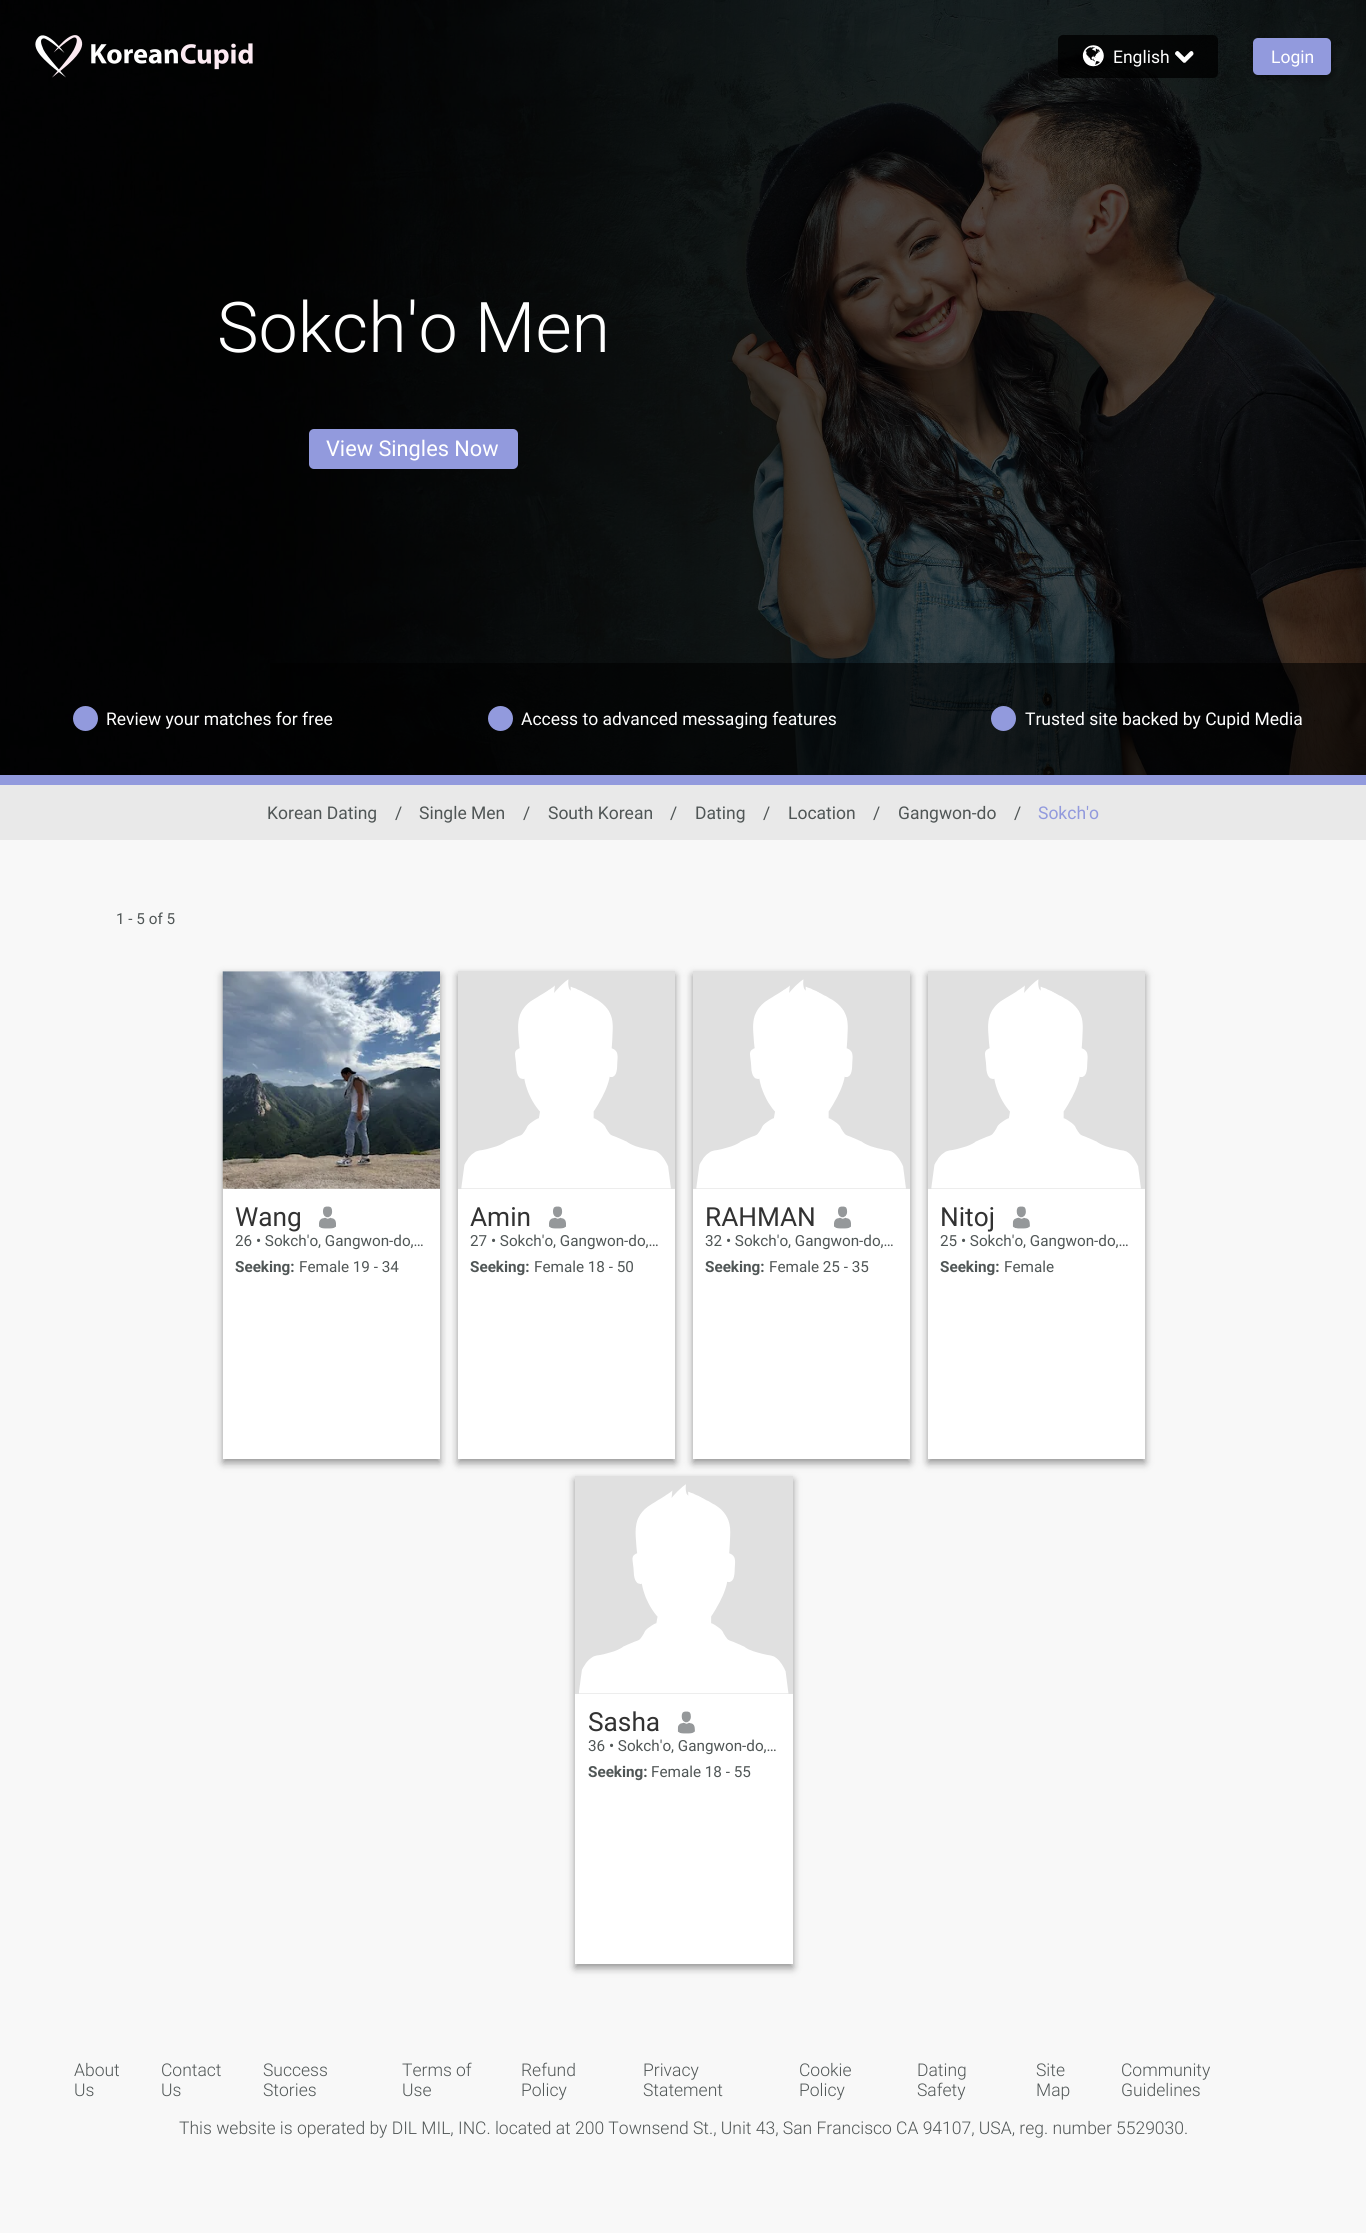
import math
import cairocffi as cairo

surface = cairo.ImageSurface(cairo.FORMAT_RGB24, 1366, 2233)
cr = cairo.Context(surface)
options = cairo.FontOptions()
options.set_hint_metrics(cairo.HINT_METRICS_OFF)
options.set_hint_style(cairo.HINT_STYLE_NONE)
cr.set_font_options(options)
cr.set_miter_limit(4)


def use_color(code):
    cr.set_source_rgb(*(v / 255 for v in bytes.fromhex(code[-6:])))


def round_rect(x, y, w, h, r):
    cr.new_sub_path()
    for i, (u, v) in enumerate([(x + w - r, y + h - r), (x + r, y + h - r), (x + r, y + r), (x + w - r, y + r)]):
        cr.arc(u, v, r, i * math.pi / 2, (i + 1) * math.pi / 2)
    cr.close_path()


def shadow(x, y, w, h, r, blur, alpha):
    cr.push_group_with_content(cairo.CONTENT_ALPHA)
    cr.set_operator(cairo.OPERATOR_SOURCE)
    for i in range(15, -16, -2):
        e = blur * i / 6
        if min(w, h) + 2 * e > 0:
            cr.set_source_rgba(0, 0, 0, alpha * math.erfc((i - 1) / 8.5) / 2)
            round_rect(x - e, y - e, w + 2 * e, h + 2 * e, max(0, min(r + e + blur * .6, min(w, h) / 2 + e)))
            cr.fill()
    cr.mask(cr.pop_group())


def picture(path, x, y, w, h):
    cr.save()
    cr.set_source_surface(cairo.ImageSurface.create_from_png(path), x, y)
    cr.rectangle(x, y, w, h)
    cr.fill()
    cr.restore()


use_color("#f8f8f8")
cr.paint()
picture("img5.png", 0, 0, 1366, 775)
picture("img1.png", 35, 35, 48, 43)
picture("img2.png", 91, 43, 162, 27)
cr.set_source_rgba(0, 0, 0, 0.8)
round_rect(1058, 35, 160, 43, 5)
cr.fill()
picture("img3.png", 1082, 45, 22, 22)
cr.select_font_face("Roboto")
cr.set_font_size(17.5)
use_color("#ffffff")
cr.move_to(1113, 63)
cr.show_text("English")
picture("img4.png", 1175, 51, 19, 12)
use_color("#000000")
shadow(1253, 41, 78, 38, 5, 4, 0.4)
use_color("#929add")
round_rect(1253, 38, 78, 37, 5)
cr.fill()
use_color("#ffffff")
cr.move_to(1271, 63)
cr.show_text("Login")
cr.select_font_face("Roboto Light")
cr.set_font_size(70)
cr.move_to(217, 352)
cr.show_text("Sokch'o Men")
use_color("#929add")
round_rect(309, 429, 209, 40, 5)
cr.fill()
cr.select_font_face("Roboto")
cr.set_font_size(21.75)
use_color("#ffffff")
cr.move_to(326, 456)
cr.show_text("View Singles Now")
cr.set_source_rgba(0, 0, 0, 0.6)
cr.rectangle(270, 663, 1096, 112)
cr.fill()
use_color("#929add")
cr.arc(85.5, 718.5, 12.5, 0, 2 * math.pi)
cr.fill()
cr.set_font_size(17.5)
use_color("#ffffff")
cr.move_to(106, 725)
cr.show_text("Review your matches for free")
use_color("#929add")
cr.new_path()
cr.arc(500.5, 718.5, 12.5, 0, 2 * math.pi)
cr.fill()
use_color("#ffffff")
cr.move_to(521, 725)
cr.show_text("Access to advanced messaging features")
use_color("#929add")
cr.new_path()
cr.arc(1003.5, 718.5, 12.5, 0, 2 * math.pi)
cr.fill()
use_color("#ffffff")
cr.move_to(1025, 725)
cr.show_text("Trusted site backed by Cupid Media")
use_color("#929add")
cr.rectangle(0, 775, 1366, 10)
cr.fill()
use_color("#e9e9e9")
cr.rectangle(0, 785, 1366, 55)
cr.fill()
use_color("#505656")
cr.move_to(267, 819)
cr.show_text("Korean Dating")
cr.move_to(395, 819)
cr.show_text("/")
cr.move_to(419, 819)
cr.show_text("Single Men")
cr.move_to(523, 819)
cr.show_text("/")
cr.move_to(548, 819)
cr.show_text("South Korean")
cr.move_to(670, 819)
cr.show_text("/")
cr.move_to(695, 819)
cr.show_text("Dating")
cr.move_to(763, 819)
cr.show_text("/")
cr.move_to(788, 819)
cr.show_text("Location")
cr.move_to(873, 819)
cr.show_text("/")
cr.move_to(898, 819)
cr.show_text("Gangwon-do")
cr.move_to(1014, 819)
cr.show_text("/")
use_color("#929add")
cr.move_to(1038, 819)
cr.show_text("Sokch'o")
cr.set_font_size(15.25)
use_color("#505656")
cr.move_to(116, 924)
cr.show_text("1 - 5 of 5")
use_color("#000000")
shadow(223, 975, 217, 488, 0, 4, 0.4)
use_color("#ffffff")
cr.rectangle(223, 1189, 217, 270)
cr.fill()
use_color("#e0e0e0")
cr.rectangle(223, 971, 217, 218)
cr.fill()
picture("img6.png", 222, 971, 218, 218)
cr.set_font_size(26.25)
use_color("#323232")
cr.move_to(235, 1226)
cr.show_text("Wang")
picture("img7.png", 319, 1206, 17, 23)
cr.set_font_size(15.25)
use_color("#505656")
cr.move_to(235, 1246)
cr.show_text("26 • Sokch'o, Gangwon-do,…")
cr.select_font_face("Roboto", cairo.FONT_SLANT_NORMAL, cairo.FONT_WEIGHT_BOLD)
cr.move_to(235, 1272)
cr.show_text("Seeking:")
cr.select_font_face("Roboto")
cr.move_to(299, 1272)
cr.show_text("Female 19 - 34")
use_color("#000000")
shadow(458, 975, 217, 488, 0, 4, 0.4)
use_color("#ffffff")
cr.rectangle(458, 1189, 217, 270)
cr.fill()
use_color("#e0e0e0")
cr.rectangle(458, 971, 217, 218)
cr.fill()
picture("img8.png", 461, 979, 210, 210)
cr.set_font_size(26.25)
use_color("#323232")
cr.move_to(470, 1226)
cr.show_text("Amin")
picture("img7.png", 549, 1206, 17, 23)
cr.set_font_size(15.25)
use_color("#505656")
cr.move_to(470, 1246)
cr.show_text("27 • Sokch'o, Gangwon-do,…")
cr.select_font_face("Roboto", cairo.FONT_SLANT_NORMAL, cairo.FONT_WEIGHT_BOLD)
cr.move_to(470, 1272)
cr.show_text("Seeking:")
cr.select_font_face("Roboto")
cr.move_to(534, 1272)
cr.show_text("Female 18 - 50")
use_color("#000000")
shadow(693, 975, 217, 488, 0, 4, 0.4)
use_color("#ffffff")
cr.rectangle(693, 1189, 217, 270)
cr.fill()
use_color("#e0e0e0")
cr.rectangle(693, 971, 217, 218)
cr.fill()
picture("img9.png", 696, 979, 210, 210)
cr.set_font_size(26.25)
use_color("#323232")
cr.move_to(705, 1226)
cr.show_text("RAHMAN")
picture("img7.png", 834, 1206, 17, 23)
cr.set_font_size(15.25)
use_color("#505656")
cr.move_to(705, 1246)
cr.show_text("32 • Sokch'o, Gangwon-do,…")
cr.select_font_face("Roboto", cairo.FONT_SLANT_NORMAL, cairo.FONT_WEIGHT_BOLD)
cr.move_to(705, 1272)
cr.show_text("Seeking:")
cr.select_font_face("Roboto")
cr.move_to(769, 1272)
cr.show_text("Female 25 - 35")
use_color("#000000")
shadow(928, 975, 217, 488, 0, 4, 0.4)
use_color("#ffffff")
cr.rectangle(928, 1189, 217, 270)
cr.fill()
use_color("#e0e0e0")
cr.rectangle(928, 971, 217, 218)
cr.fill()
picture("img10.png", 931, 979, 210, 210)
cr.set_font_size(26.25)
use_color("#323232")
cr.move_to(940, 1226)
cr.show_text("Nitoj")
picture("img11.png", 1012, 1206, 18, 23)
cr.set_font_size(15.25)
use_color("#505656")
cr.move_to(940, 1246)
cr.show_text("25 • Sokch'o, Gangwon-do,…")
cr.select_font_face("Roboto", cairo.FONT_SLANT_NORMAL, cairo.FONT_WEIGHT_BOLD)
cr.move_to(940, 1272)
cr.show_text("Seeking:")
cr.select_font_face("Roboto")
cr.move_to(1004, 1272)
cr.show_text("Female")
use_color("#000000")
shadow(575, 1480, 218, 488, 0, 4, 0.4)
use_color("#ffffff")
cr.rectangle(575, 1694, 218, 270)
cr.fill()
use_color("#e0e0e0")
cr.rectangle(575, 1476, 218, 218)
cr.fill()
picture("img12.png", 579, 1484, 210, 210)
cr.set_font_size(26.25)
use_color("#323232")
cr.move_to(588, 1731)
cr.show_text("Sasha")
picture("img13.png", 677, 1711, 18, 23)
cr.set_font_size(15.25)
use_color("#505656")
cr.move_to(588, 1751)
cr.show_text("36 • Sokch'o, Gangwon-do,…")
cr.select_font_face("Roboto", cairo.FONT_SLANT_NORMAL, cairo.FONT_WEIGHT_BOLD)
cr.move_to(588, 1777)
cr.show_text("Seeking:")
cr.select_font_face("Roboto")
cr.move_to(651, 1777)
cr.show_text("Female 18 - 55")
cr.select_font_face("Roboto Light")
cr.set_font_size(17.5)
cr.move_to(74, 2076)
cr.show_text("About")
cr.move_to(74, 2096)
cr.show_text("Us")
cr.move_to(161, 2076)
cr.show_text("Contact")
cr.move_to(161, 2096)
cr.show_text("Us")
cr.move_to(263, 2076)
cr.show_text("Success")
cr.move_to(263, 2096)
cr.show_text("Stories")
cr.move_to(402, 2076)
cr.show_text("Terms of")
cr.move_to(402, 2096)
cr.show_text("Use")
cr.move_to(521, 2076)
cr.show_text("Refund")
cr.move_to(521, 2096)
cr.show_text("Policy")
cr.move_to(643, 2076)
cr.show_text("Privacy")
cr.move_to(643, 2096)
cr.show_text("Statement")
cr.move_to(799, 2076)
cr.show_text("Cookie")
cr.move_to(799, 2096)
cr.show_text("Policy")
cr.move_to(917, 2076)
cr.show_text("Dating")
cr.move_to(917, 2096)
cr.show_text("Safety")
cr.move_to(1036, 2076)
cr.show_text("Site")
cr.move_to(1036, 2096)
cr.show_text("Map")
cr.move_to(1121, 2076)
cr.show_text("Community")
cr.move_to(1121, 2096)
cr.show_text("Guidelines")
cr.move_to(179, 2134)
cr.show_text("This website is operated by DIL MIL, INC. located at 200 Townsend St., Unit 43, San Francisco CA 94107, USA, reg. number 5529030.")
surface.write_to_png("result.png")
